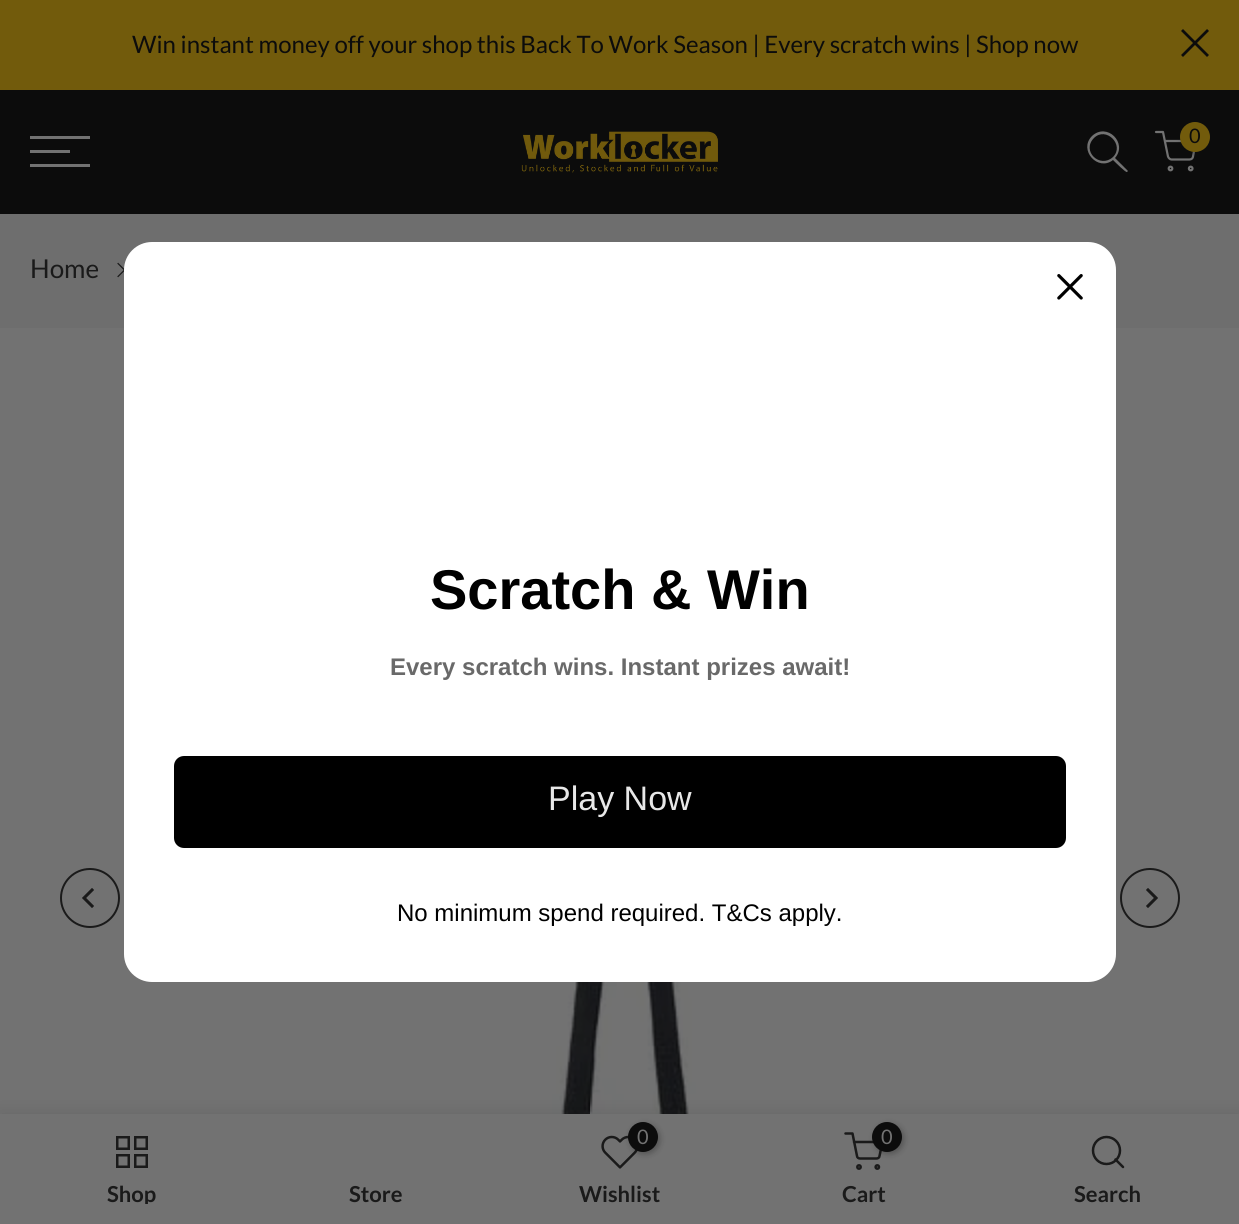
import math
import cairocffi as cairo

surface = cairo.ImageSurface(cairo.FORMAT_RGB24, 1239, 1224)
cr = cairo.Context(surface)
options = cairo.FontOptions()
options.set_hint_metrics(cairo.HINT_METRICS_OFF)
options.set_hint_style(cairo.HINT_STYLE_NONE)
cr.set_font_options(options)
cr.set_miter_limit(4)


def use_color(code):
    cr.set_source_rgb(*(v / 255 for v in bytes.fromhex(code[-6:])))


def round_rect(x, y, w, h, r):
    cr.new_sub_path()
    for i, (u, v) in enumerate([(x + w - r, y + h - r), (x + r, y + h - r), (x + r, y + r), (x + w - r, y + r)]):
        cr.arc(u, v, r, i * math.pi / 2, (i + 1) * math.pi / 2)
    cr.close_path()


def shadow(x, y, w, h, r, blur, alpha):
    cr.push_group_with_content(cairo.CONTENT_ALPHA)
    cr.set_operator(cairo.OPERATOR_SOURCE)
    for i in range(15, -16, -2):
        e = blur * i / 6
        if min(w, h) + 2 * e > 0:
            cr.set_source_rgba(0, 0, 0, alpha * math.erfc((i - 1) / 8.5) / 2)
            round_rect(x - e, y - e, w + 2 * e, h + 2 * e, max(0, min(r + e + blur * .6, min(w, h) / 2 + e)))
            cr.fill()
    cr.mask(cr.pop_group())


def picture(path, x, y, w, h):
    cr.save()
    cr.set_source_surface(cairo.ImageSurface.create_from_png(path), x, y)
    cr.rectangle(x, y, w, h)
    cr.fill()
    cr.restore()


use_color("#727272")
cr.paint()
use_color("#725b0c")
cr.rectangle(0, 0, 1239, 90)
cr.fill()
cr.select_font_face("Lato")
cr.set_font_size(24)
use_color("#0c0c0c")
cr.move_to(132, 53)
cr.show_text("Win instant money off your shop this Back To Work Season | Every scratch wins | Shop now")
cr.new_path()
cr.move_to(1208, 30)
cr.line_to(1182, 56)
cr.move_to(1208, 56)
cr.line_to(1182, 30)
cr.set_line_width(2.8)
cr.stroke()
cr.rectangle(0, 90, 1239, 124)
cr.fill()
use_color("#727272")
cr.rectangle(30, 136, 60, 3)
cr.fill()
cr.rectangle(30, 150, 40, 3)
cr.fill()
cr.rectangle(30, 164, 60, 3)
cr.fill()
picture("img1.png", 521, 131, 197, 42)
cr.set_fill_rule(cairo.FILL_RULE_EVEN_ODD)
cr.new_path()
cr.move_to(1113, 157)
cr.curve_to(1100, 169, 1081, 151, 1094, 138)
cr.curve_to(1106, 126, 1125, 145, 1113, 157)
cr.close_path()
cr.move_to(1113, 160)
cr.curve_to(1098, 172, 1078, 150, 1092, 136)
cr.curve_to(1107, 122, 1128, 143, 1115, 158)
cr.line_to(1128, 171)
cr.line_to(1127, 172)
cr.curve_to(1126, 173, 1115, 162, 1113, 160)
cr.close_path()
cr.fill()
cr.new_path()
cr.move_to(1156, 132)
cr.line_to(1163, 132)
cr.line_to(1168, 156.5)
cr.curve_to(1168.5, 158, 1170, 159.5, 1171.5, 159.5)
cr.line_to(1189.5, 159.5)
cr.curve_to(1191.5, 159.5, 1193, 158, 1193, 156.5)
cr.line_to(1196, 141)
cr.line_to(1165, 141)
cr.set_line_width(2.2)
cr.set_line_cap(cairo.LINE_CAP_ROUND)
cr.set_line_join(cairo.LINE_JOIN_ROUND)
cr.stroke()
use_color("#0c0c0c")
shadow(1182, 124, 30, 30, 15, 3, 0.3)
use_color("#725b0c")
cr.arc(1195, 137, 15, 0, 2 * math.pi)
cr.fill()
cr.set_font_size(20)
use_color("#0c0c0c")
cr.move_to(1189, 143)
cr.show_text("0")
cr.new_path()
cr.arc(1170.5, 168.5, 1.8, 0, 2 * math.pi)
use_color("#727272")
cr.set_line_cap(cairo.LINE_CAP_BUTT)
cr.set_line_join(cairo.LINE_JOIN_MITER)
cr.stroke()
cr.arc(1190.7, 168.5, 1.8, 0, 2 * math.pi)
cr.stroke()
use_color("#6e6e6e")
cr.rectangle(0, 214, 1239, 114)
cr.fill()
cr.set_font_size(26)
use_color("#1a1a1a")
cr.move_to(30, 278)
cr.show_text("Home")
picture("img2.png", 117, 262, 8, 16)
cr.arc(90, 898, 29, 0, 2 * math.pi)
cr.set_line_width(2)
cr.stroke()
picture("img3.png", 82, 888, 12, 20)
cr.arc(1150, 898, 29, 0, 2 * math.pi)
cr.stroke()
picture("img4.png", 1146, 888, 12, 20)
picture("img5.png", 552, 982, 185, 132)
use_color("#ffffff")
round_rect(124, 242, 992, 740, 28)
cr.fill()
picture("img6.png", 1057, 274, 26, 26)
cr.select_font_face("Liberation Sans", cairo.FONT_SLANT_NORMAL, cairo.FONT_WEIGHT_BOLD)
cr.set_font_size(56)
use_color("#000000")
cr.move_to(430, 609)
cr.show_text("Scratch & Win")
cr.set_font_size(24)
use_color("#696969")
cr.move_to(390, 675)
cr.show_text("Every scratch wins. Instant prizes await!")
use_color("#000000")
round_rect(176, 758, 888, 88, 8)
cr.fill_preserve()
cr.set_line_width(4)
cr.stroke()
cr.select_font_face("Liberation Sans")
cr.set_font_size(34)
use_color("#e8e8e8")
cr.move_to(548, 810)
cr.show_text("Play Now")
cr.set_font_size(24)
use_color("#000000")
cr.move_to(397, 921)
cr.show_text("No minimum spend required. T&Cs apply.")
use_color("#0c0c0c")
shadow(0, 1114, 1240, 110, 0, 9, 0.12)
use_color("#727272")
cr.rectangle(0, 1114, 1239, 110)
cr.fill()
cr.rectangle(117.25, 1137.25, 11.5, 11.5)
use_color("#1a1a1a")
cr.set_line_width(2.5)
cr.stroke()
cr.rectangle(135.25, 1137.25, 11.5, 11.5)
cr.stroke()
cr.rectangle(117.25, 1155.25, 11.5, 11.5)
cr.stroke()
cr.rectangle(135.25, 1155.25, 11.5, 11.5)
cr.stroke()
cr.save()
cr.set_fill_rule(cairo.FILL_RULE_WINDING)
cr.rectangle(30, 1182, 204, 22)
cr.clip()
cr.select_font_face("Lato", cairo.FONT_SLANT_NORMAL, cairo.FONT_WEIGHT_BOLD)
cr.set_font_size(22)
cr.move_to(107, 1202)
cr.show_text("Shop")
cr.restore()
cr.select_font_face("Lato", cairo.FONT_SLANT_NORMAL, cairo.FONT_WEIGHT_BOLD)
cr.set_font_size(22)
cr.move_to(349, 1202)
cr.show_text("Store")
picture("img7.png", 601, 1135, 37, 34)
use_color("#0c0c0c")
shadow(630, 1124, 30, 30, 15, 3, 0.3)
use_color("#0c0c0c")
cr.arc(643, 1137, 15, 0, 2 * math.pi)
cr.fill()
cr.select_font_face("Lato")
cr.set_font_size(20)
use_color("#727272")
cr.move_to(637, 1144)
cr.show_text("0")
cr.select_font_face("Lato", cairo.FONT_SLANT_NORMAL, cairo.FONT_WEIGHT_BOLD)
cr.set_font_size(22)
use_color("#1a1a1a")
cr.move_to(579, 1202)
cr.show_text("Wishlist")
cr.new_path()
cr.move_to(845.5, 1133.5)
cr.line_to(852.5, 1133.5)
cr.line_to(857, 1156)
cr.curve_to(857, 1157.5, 858.5, 1158.5, 860, 1158.5)
cr.line_to(876.5, 1158.5)
cr.curve_to(878, 1158.5, 879.5, 1157.5, 879.5, 1156)
cr.line_to(882.5, 1142)
cr.line_to(854, 1142)
cr.set_line_cap(cairo.LINE_CAP_ROUND)
cr.set_line_join(cairo.LINE_JOIN_ROUND)
cr.stroke()
use_color("#0c0c0c")
shadow(874, 1124, 30, 30, 15, 3, 0.3)
use_color("#0c0c0c")
cr.arc(887, 1137, 15, 0, 2 * math.pi)
cr.fill()
cr.select_font_face("Lato")
cr.set_font_size(20)
use_color("#727272")
cr.move_to(881, 1144)
cr.show_text("0")
cr.new_path()
cr.arc(859, 1167, 1.7, 0, 2 * math.pi)
use_color("#1a1a1a")
cr.set_line_cap(cairo.LINE_CAP_BUTT)
cr.set_line_join(cairo.LINE_JOIN_MITER)
cr.stroke()
cr.arc(877.3, 1167, 1.7, 0, 2 * math.pi)
cr.stroke()
cr.select_font_face("Lato", cairo.FONT_SLANT_NORMAL, cairo.FONT_WEIGHT_BOLD)
cr.set_font_size(22)
cr.move_to(842, 1202)
cr.show_text("Cart")
cr.new_path()
cr.arc(1106.5, 1150.5, 13.5, 0, 2 * math.pi)
cr.stroke()
cr.new_path()
cr.move_to(1123, 1167)
cr.line_to(1115.5, 1159.5)
cr.set_line_cap(cairo.LINE_CAP_ROUND)
cr.set_line_join(cairo.LINE_JOIN_ROUND)
cr.stroke()
cr.move_to(1074, 1202)
cr.show_text("Search")
surface.write_to_png("result.png")
